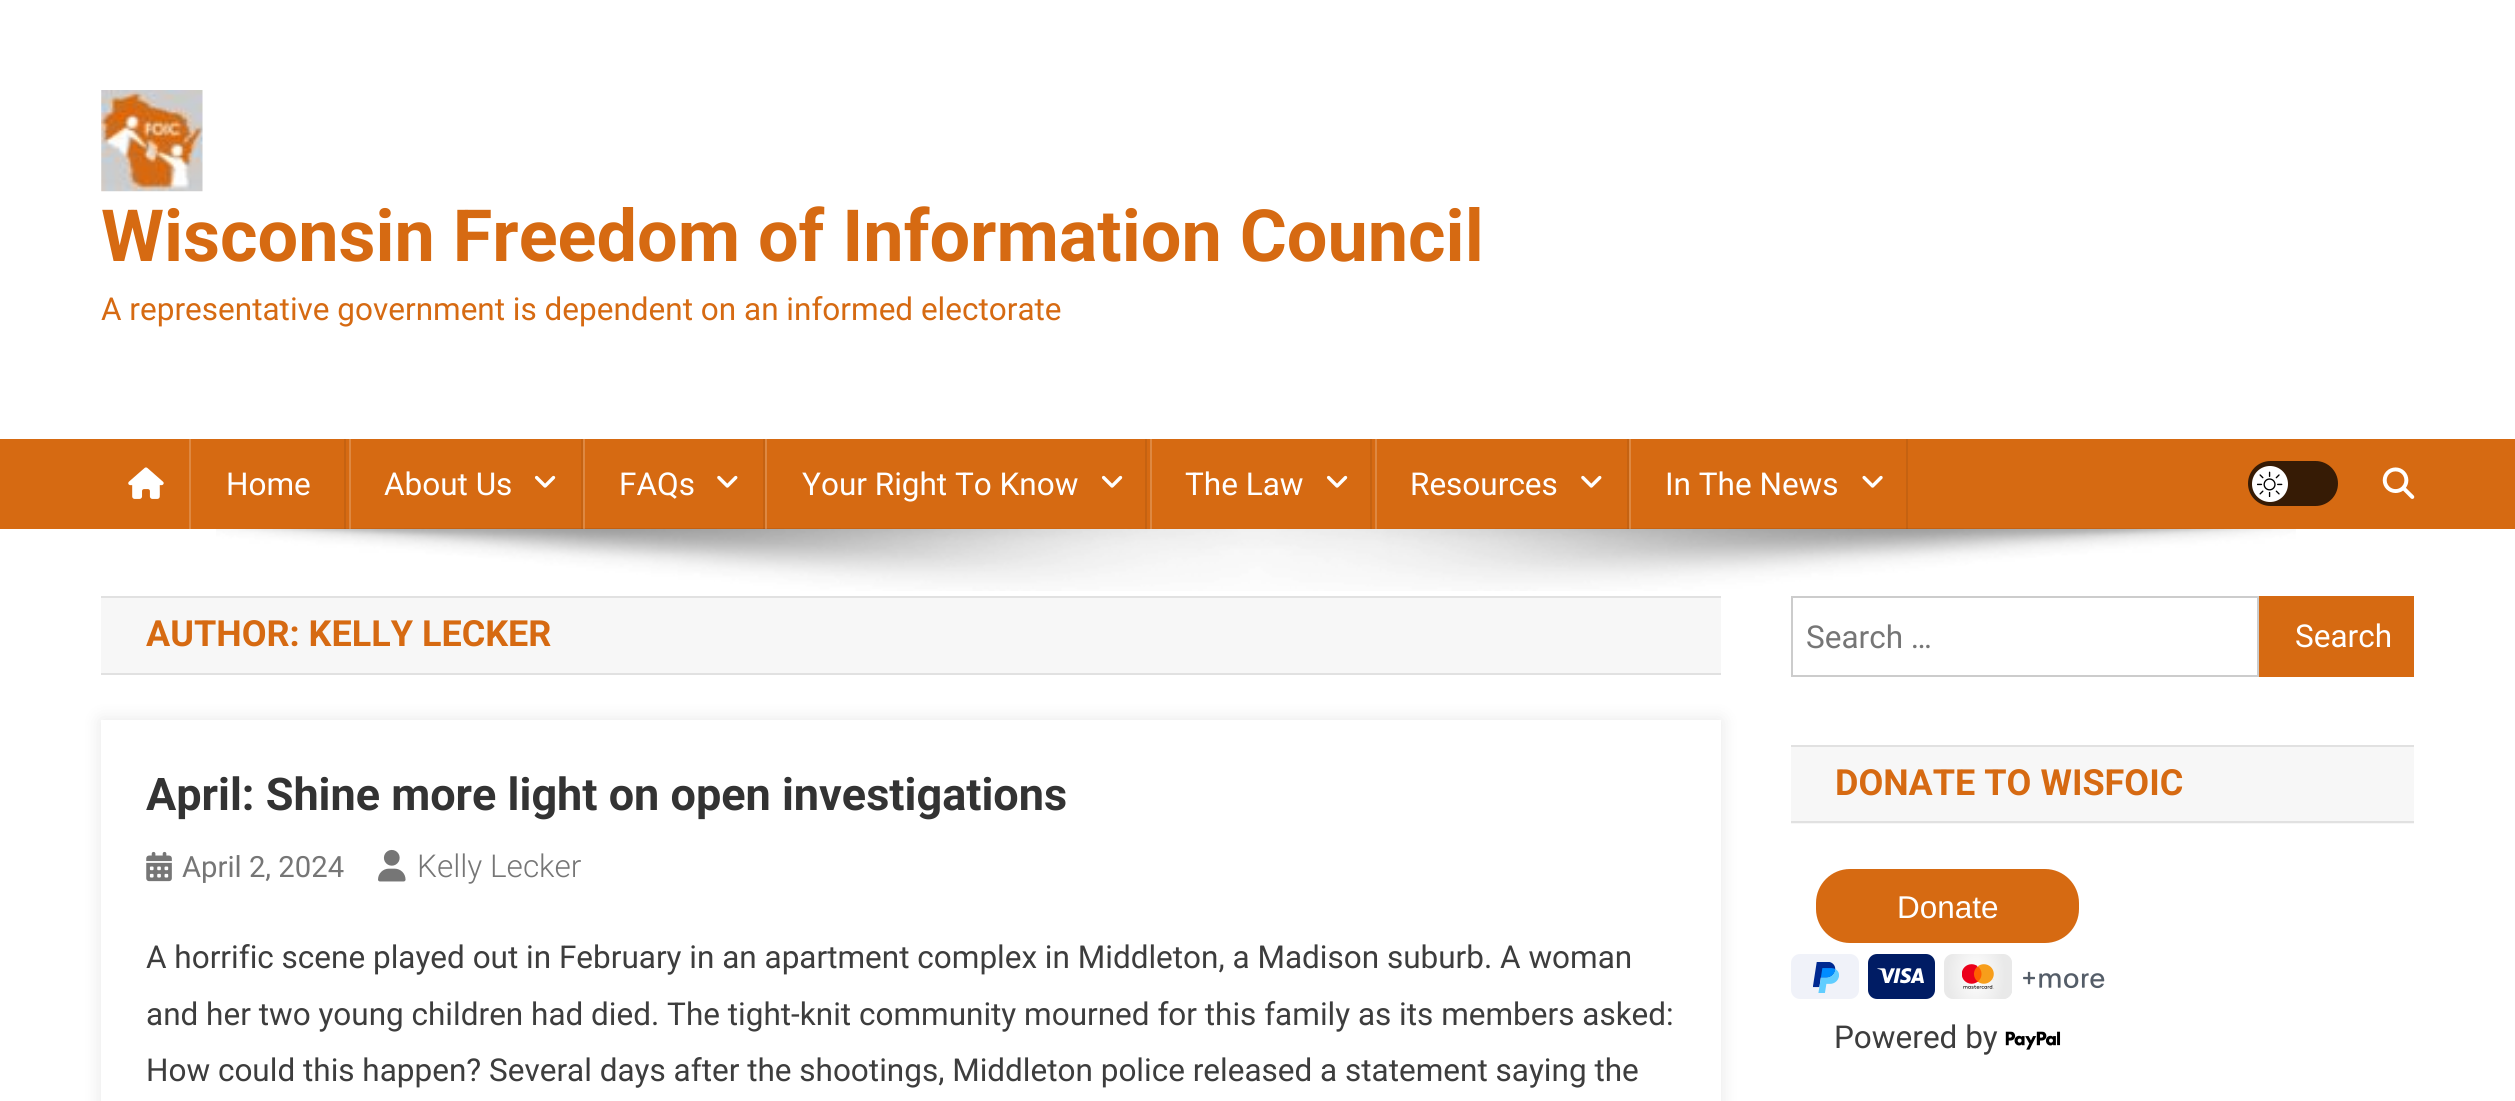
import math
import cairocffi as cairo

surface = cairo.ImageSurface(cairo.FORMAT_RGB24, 2515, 1101)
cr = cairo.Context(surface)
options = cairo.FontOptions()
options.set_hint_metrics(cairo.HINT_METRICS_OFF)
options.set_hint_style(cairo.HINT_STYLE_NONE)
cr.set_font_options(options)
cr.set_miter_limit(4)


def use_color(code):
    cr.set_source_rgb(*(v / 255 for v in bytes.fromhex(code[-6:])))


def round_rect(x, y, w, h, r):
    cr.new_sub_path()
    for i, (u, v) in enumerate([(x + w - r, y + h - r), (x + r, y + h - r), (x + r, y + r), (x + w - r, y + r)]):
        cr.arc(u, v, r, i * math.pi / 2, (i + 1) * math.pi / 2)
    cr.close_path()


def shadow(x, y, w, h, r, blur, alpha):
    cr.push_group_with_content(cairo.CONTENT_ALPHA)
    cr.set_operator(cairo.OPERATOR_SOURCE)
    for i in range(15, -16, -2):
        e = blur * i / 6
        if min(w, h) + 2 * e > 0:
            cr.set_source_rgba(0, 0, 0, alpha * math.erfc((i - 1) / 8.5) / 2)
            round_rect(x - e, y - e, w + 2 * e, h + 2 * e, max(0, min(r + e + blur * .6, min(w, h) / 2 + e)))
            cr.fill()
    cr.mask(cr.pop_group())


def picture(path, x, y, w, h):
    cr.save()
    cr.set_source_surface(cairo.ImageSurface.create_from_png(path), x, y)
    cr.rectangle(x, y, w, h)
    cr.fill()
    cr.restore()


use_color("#ffffff")
cr.paint()
picture("img1.png", 101, 90, 102, 102)
cr.select_font_face("Roboto", cairo.FONT_SLANT_NORMAL, cairo.FONT_WEIGHT_BOLD)
cr.set_font_size(72)
use_color("#d66a12")
cr.move_to(101, 261)
cr.show_text("Wisconsin Freedom of Information Council")
cr.select_font_face("Roboto")
cr.set_font_size(31.5)
cr.move_to(101, 320)
cr.show_text("A representative government is dependent on an informed electorate")
cr.rectangle(0, 439, 2515, 90)
cr.fill()
use_color("#de8841")
cr.rectangle(1375, 439, 2, 90)
cr.fill()
cr.rectangle(1150, 439, 2, 90)
cr.fill()
use_color("#c56211")
cr.rectangle(1370, 439, 2, 90)
cr.fill()
cr.rectangle(1145, 439, 2, 90)
cr.fill()
picture("img2.png", 128, 467, 36, 32)
picture("img8.png", 216, 528, 2080, 63)
cr.set_source_rgba(0, 0, 0, 0.08)
cr.rectangle(344, 439, 2, 90)
cr.fill()
use_color("#de8841")
cr.rectangle(189, 439, 2, 90)
cr.fill()
use_color("#ffffff")
cr.move_to(226, 495)
cr.show_text("Home")
cr.set_source_rgba(0, 0, 0, 0.08)
cr.rectangle(581, 439, 2, 90)
cr.fill()
cr.set_source_rgba(1, 1, 1, 0.2)
cr.rectangle(349, 439, 2, 90)
cr.fill()
use_color("#ffffff")
cr.move_to(384, 495)
cr.show_text("About Us")
picture("img3.png", 534, 475, 22, 13)
cr.set_source_rgba(0, 0, 0, 0.08)
cr.rectangle(763, 439, 2, 90)
cr.fill()
cr.set_source_rgba(1, 1, 1, 0.2)
cr.rectangle(583, 439, 2, 90)
cr.fill()
use_color("#ffffff")
cr.move_to(619, 495)
cr.show_text("FAQs")
picture("img4.png", 717, 475, 21, 13)
cr.set_source_rgba(1, 1, 1, 0.2)
cr.rectangle(765, 439, 2, 90)
cr.fill()
use_color("#ffffff")
cr.move_to(802, 495)
cr.show_text("Your Right To Know")
picture("img3.png", 1101, 475, 22, 13)
cr.move_to(1185, 495)
cr.show_text("The Law")
picture("img3.png", 1326, 475, 22, 13)
cr.set_source_rgba(0, 0, 0, 0.08)
cr.rectangle(1627, 439, 2, 90)
cr.fill()
use_color("#ffffff")
cr.move_to(1410, 495)
cr.show_text("Resources")
picture("img4.png", 1581, 475, 21, 13)
cr.set_source_rgba(0, 0, 0, 0.08)
cr.rectangle(1906, 439, 2, 90)
cr.fill()
cr.set_source_rgba(1, 1, 1, 0.2)
cr.rectangle(1629, 439, 2, 90)
cr.fill()
use_color("#ffffff")
cr.move_to(1665, 495)
cr.show_text("In The News")
picture("img5.png", 1862, 475, 21, 13)
use_color("#361b05")
round_rect(2248, 461, 90, 45, 22.5)
cr.fill()
use_color("#ffffff")
cr.arc(2270, 484, 18, 0, 2 * math.pi)
cr.fill()
picture("img6.png", 2257, 471, 26, 26)
picture("img7.png", 2382, 467, 33, 32)
use_color("#f7f7f7")
cr.rectangle(101, 598, 1620, 75)
cr.fill()
use_color("#e1e1e1")
cr.rectangle(101, 596, 1620, 2)
cr.fill()
cr.rectangle(101, 673, 1620, 2)
cr.fill()
cr.select_font_face("Roboto", cairo.FONT_SLANT_NORMAL, cairo.FONT_WEIGHT_BOLD)
cr.set_font_size(36)
use_color("#d66a12")
cr.move_to(146, 646)
cr.show_text("AUTHOR: KELLY LECKER")
cr.save()
cr.set_fill_rule(cairo.FILL_RULE_EVEN_ODD)
cr.new_path()
cr.move_to(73, 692)
cr.line_to(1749, 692)
cr.line_to(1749, 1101)
cr.line_to(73, 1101)
cr.close_path()
cr.move_to(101, 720)
cr.line_to(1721, 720)
cr.line_to(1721, 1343)
cr.line_to(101, 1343)
cr.close_path()
cr.clip()
use_color("#000000")
shadow(101, 720, 1620, 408, 0, 9, 0.1)
cr.restore()
cr.set_font_size(45)
use_color("#333333")
cr.move_to(146, 810)
cr.show_text("April: Shine more light on open investigations")
picture("img9.png", 146, 851, 26, 31)
cr.select_font_face("Roboto")
cr.set_font_size(29.25)
use_color("#767676")
cr.move_to(182, 877)
cr.show_text("April 2, 2024")
picture("img10.png", 378, 849, 28, 33)
cr.select_font_face("Roboto Light")
cr.set_font_size(31.5)
cr.move_to(417, 877)
cr.show_text("Kelly Lecker")
cr.select_font_face("Roboto")
use_color("#3d3d3d")
cr.move_to(146, 968)
cr.show_text("A horrific scene played out in February in an apartment complex in Middleton, a Madison suburb. A woman")
cr.move_to(146, 1025)
cr.show_text("and her two young children had died. The tight-knit community mourned for this family as its members asked:")
cr.move_to(146, 1081)
cr.show_text("How could this happen? Several days after the shootings, Middleton police released a statement saying the")
cr.rectangle(1792, 597, 466, 79)
use_color("#cccccc")
cr.stroke()
use_color("#767676")
cr.move_to(1806, 648)
cr.show_text("Search …")
use_color("#d66a12")
cr.rectangle(2259, 596, 155, 81)
cr.fill()
use_color("#ffffff")
cr.move_to(2295, 647)
cr.show_text("Search")
use_color("#f7f7f7")
cr.rectangle(1791, 747, 623, 77)
cr.fill()
use_color("#e1e1e1")
cr.rectangle(1791, 745, 623, 2)
cr.fill()
cr.rectangle(1791, 821, 623, 2)
cr.fill()
cr.select_font_face("Roboto", cairo.FONT_SLANT_NORMAL, cairo.FONT_WEIGHT_BOLD)
cr.set_font_size(36)
use_color("#d66a12")
cr.move_to(1835, 795)
cr.show_text("DONATE TO WISFOIC")
round_rect(1817, 870, 261, 72, 33)
cr.fill_preserve()
cr.stroke()
cr.select_font_face("Liberation Sans")
cr.set_font_size(31.5)
use_color("#ffffff")
cr.move_to(1897, 918)
cr.show_text("Donate")
picture("img11.png", 1791, 954, 314, 45)
cr.select_font_face("Roboto")
use_color("#3d3d3d")
cr.move_to(1834, 1048)
cr.show_text("Powered by")
picture("img12.png", 2005, 1031, 56, 19)
surface.write_to_png("result.png")
